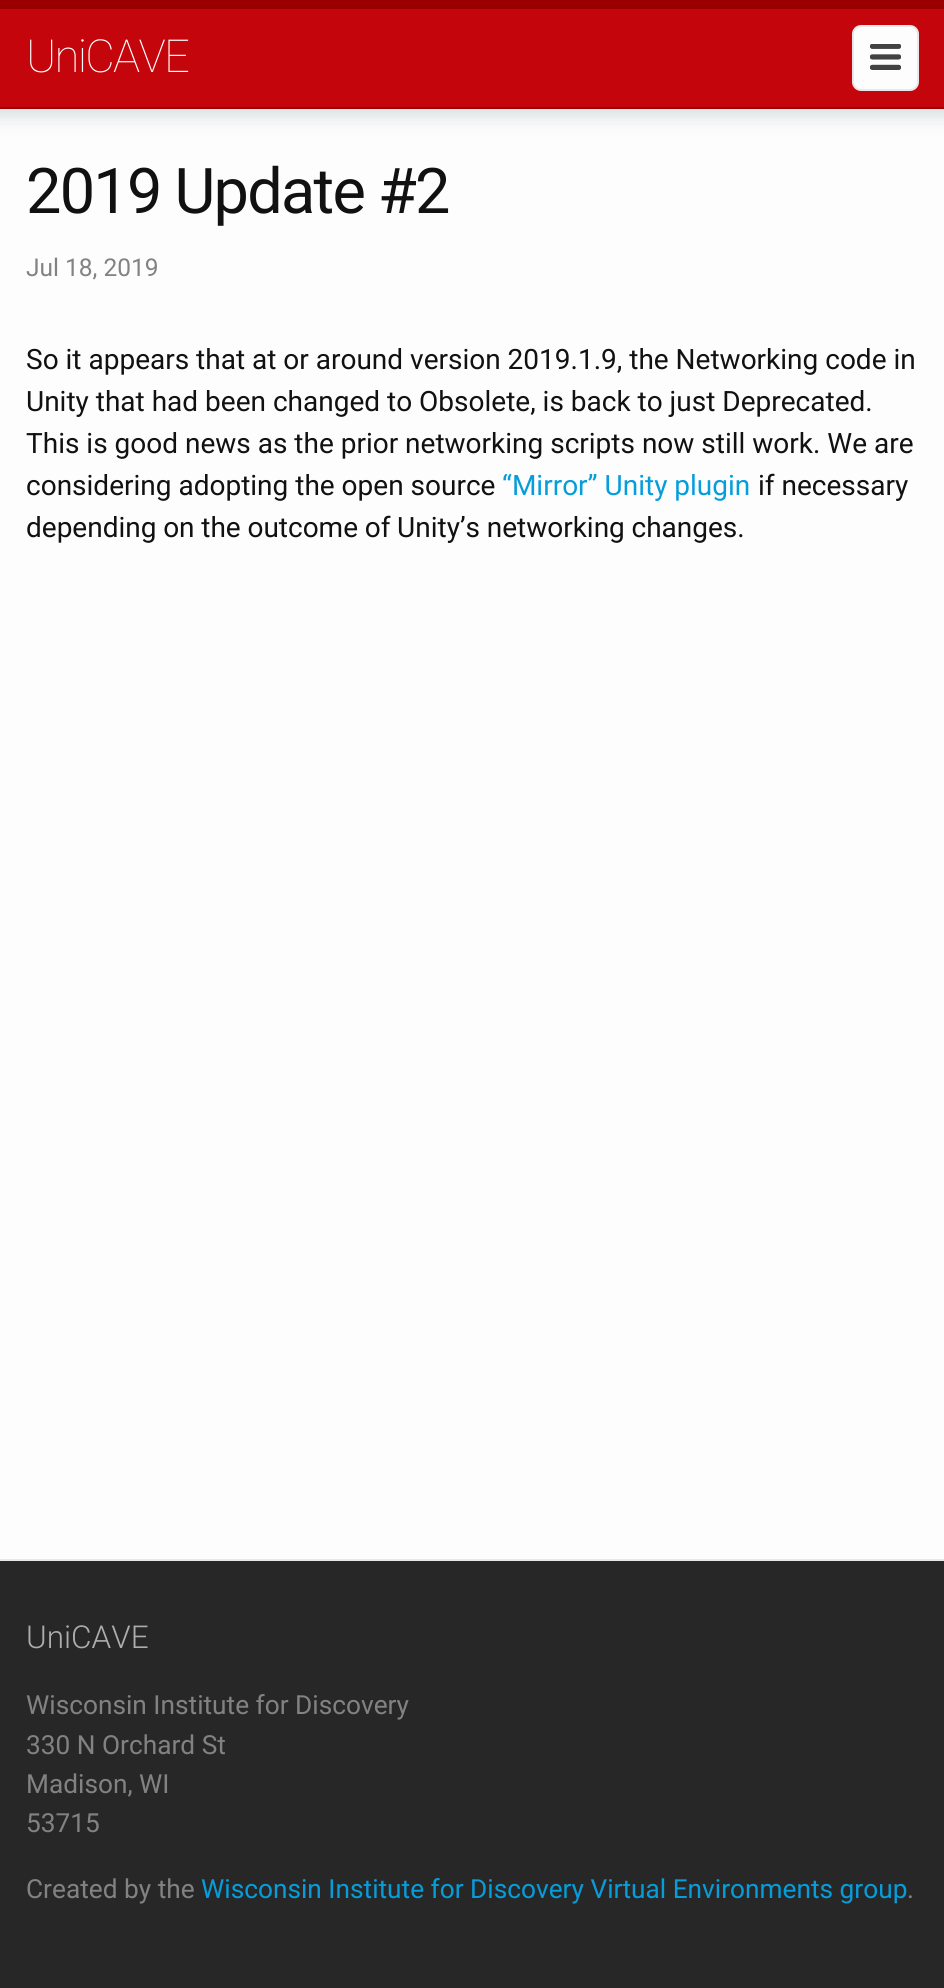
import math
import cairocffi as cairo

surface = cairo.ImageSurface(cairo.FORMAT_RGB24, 944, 1988)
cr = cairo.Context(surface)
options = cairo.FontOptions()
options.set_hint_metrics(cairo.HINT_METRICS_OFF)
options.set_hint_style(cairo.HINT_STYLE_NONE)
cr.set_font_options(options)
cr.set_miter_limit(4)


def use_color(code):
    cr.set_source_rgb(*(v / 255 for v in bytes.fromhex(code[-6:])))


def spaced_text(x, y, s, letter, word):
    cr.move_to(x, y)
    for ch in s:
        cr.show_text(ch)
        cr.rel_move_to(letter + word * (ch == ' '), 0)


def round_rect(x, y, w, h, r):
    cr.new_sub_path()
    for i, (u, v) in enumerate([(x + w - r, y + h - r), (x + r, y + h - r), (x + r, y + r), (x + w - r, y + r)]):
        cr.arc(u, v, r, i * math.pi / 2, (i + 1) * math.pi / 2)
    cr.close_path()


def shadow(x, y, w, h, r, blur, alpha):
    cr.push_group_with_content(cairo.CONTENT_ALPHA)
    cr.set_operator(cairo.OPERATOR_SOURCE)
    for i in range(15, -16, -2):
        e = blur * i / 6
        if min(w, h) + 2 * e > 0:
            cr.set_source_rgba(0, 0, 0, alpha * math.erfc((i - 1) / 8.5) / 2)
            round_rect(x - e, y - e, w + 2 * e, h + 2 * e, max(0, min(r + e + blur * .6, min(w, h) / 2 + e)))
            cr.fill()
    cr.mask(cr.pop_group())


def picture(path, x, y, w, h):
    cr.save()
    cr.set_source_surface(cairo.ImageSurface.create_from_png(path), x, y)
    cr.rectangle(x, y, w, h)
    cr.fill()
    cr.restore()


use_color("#fdfdfd")
cr.paint()
use_color("#dadfe1")
shadow(-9, -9, 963, 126, 0, 9, 1)
use_color("#c5050c")
cr.rectangle(0, 9, 944, 98)
cr.fill()
use_color("#9b0000")
cr.rectangle(0, 0, 944, 9)
cr.fill()
cr.rectangle(0, 107, 944, 2)
cr.fill()
cr.select_font_face("Roboto Thin")
cr.set_font_size(45.5)
use_color("#ffffff")
spaced_text(26, 72, "UniCAVE", -1.75, 0)
use_color("#fdfdfd")
round_rect(853, 26, 65, 64, 8)
cr.fill_preserve()
use_color("#e8e8e8")
cr.stroke()
picture("img1.png", 870, 44, 31, 26)
cr.select_font_face("Roboto")
cr.set_font_size(63)
use_color("#111111")
spaced_text(26, 213, "2019 Update #2", -1.75, 0)
cr.set_font_size(24.5)
use_color("#828282")
cr.move_to(26, 276)
cr.show_text("Jul 18, 2019")
cr.set_font_size(28)
use_color("#111111")
cr.move_to(26, 369)
cr.show_text("So it appears that at or around version 2019.1.9, the Networking code in")
cr.move_to(26, 411)
cr.show_text("Unity that had been changed to Obsolete, is back to just Deprecated.")
cr.move_to(26, 453)
cr.show_text("This is good news as the prior networking scripts now still work. We are")
cr.move_to(26, 495)
cr.show_text("considering adopting the open source")
use_color("#059dda")
cr.move_to(502, 495)
cr.show_text("“Mirror” Unity plugin")
use_color("#111111")
cr.move_to(758, 495)
cr.show_text("if necessary")
spaced_text(26, 537, "depending on the outcome of Unity’s networking changes.", 0, -0.25)
use_color("#282728")
cr.rectangle(0, 1561, 944, 427)
cr.fill()
use_color("#e8e8e8")
cr.rectangle(0, 1559, 944, 2)
cr.fill()
cr.select_font_face("Roboto Light")
cr.set_font_size(31.5)
use_color("#adadad")
cr.move_to(26, 1648)
cr.show_text("UniCAVE")
cr.select_font_face("Roboto")
cr.set_font_size(26.25)
use_color("#828282")
cr.move_to(26, 1714)
cr.show_text("Wisconsin Institute for Discovery")
cr.move_to(26, 1754)
cr.show_text("330 N Orchard St")
cr.move_to(26, 1793)
cr.show_text("Madison, WI")
cr.move_to(26, 1832)
cr.show_text("53715")
cr.move_to(26, 1898)
cr.show_text("Created by the")
use_color("#059dda")
cr.move_to(201, 1898)
cr.show_text("Wisconsin Institute for Discovery Virtual Environments group")
use_color("#828282")
cr.move_to(907, 1898)
cr.show_text(".")
surface.write_to_png("result.png")
